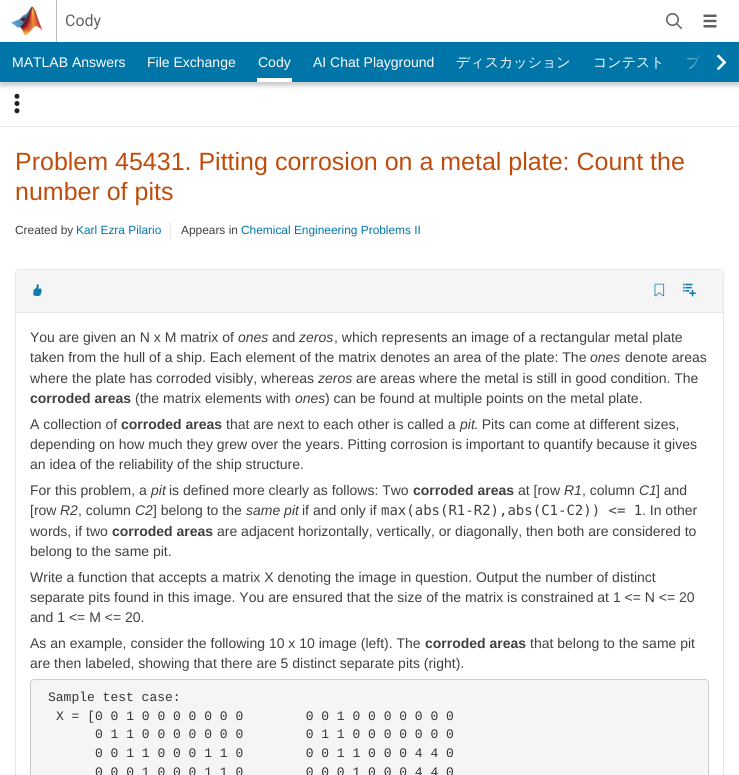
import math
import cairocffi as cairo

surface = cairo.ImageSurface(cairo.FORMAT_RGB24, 739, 775)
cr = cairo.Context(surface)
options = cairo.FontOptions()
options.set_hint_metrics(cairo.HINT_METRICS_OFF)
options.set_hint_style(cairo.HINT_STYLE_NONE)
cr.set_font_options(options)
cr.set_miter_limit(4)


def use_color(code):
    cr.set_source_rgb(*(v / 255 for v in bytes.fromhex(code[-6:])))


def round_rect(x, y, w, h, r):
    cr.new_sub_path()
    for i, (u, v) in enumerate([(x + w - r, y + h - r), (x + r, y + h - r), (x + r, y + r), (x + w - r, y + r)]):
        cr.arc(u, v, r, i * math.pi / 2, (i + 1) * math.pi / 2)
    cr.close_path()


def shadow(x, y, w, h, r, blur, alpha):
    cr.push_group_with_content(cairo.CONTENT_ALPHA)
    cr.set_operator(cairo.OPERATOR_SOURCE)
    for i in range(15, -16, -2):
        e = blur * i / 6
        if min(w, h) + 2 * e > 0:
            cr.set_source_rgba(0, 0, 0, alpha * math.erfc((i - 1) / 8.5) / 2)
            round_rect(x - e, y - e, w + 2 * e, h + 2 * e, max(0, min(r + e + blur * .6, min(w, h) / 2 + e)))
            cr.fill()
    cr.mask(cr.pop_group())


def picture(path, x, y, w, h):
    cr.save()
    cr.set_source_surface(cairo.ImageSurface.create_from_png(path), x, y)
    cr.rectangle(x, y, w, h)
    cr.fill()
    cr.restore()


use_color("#ffffff")
cr.paint()
use_color("#bfbfbf")
cr.rectangle(56, 0, 1, 42)
cr.fill()
picture("img1.png", 11, 6, 32, 30)
cr.select_font_face("Roboto")
cr.set_font_size(16)
use_color("#616161")
cr.move_to(65, 26)
cr.show_text("Cody")
picture("img2.png", 666, 13, 16, 16)
picture("img3.png", 703, 14, 14, 14)
use_color("#000000")
shadow(0, 46, 739, 40, 0, 2, 0.2)
use_color("#0076a8")
cr.rectangle(0, 42, 704, 40)
cr.fill()
cr.select_font_face("Liberation Sans")
cr.set_font_size(14)
use_color("#ffffff")
cr.move_to(12, 67)
cr.show_text("MATLAB Answers")
cr.move_to(147, 67)
cr.show_text("File Exchange")
cr.rectangle(257, 78, 35, 4)
cr.fill()
cr.move_to(258, 67)
cr.show_text("Cody")
cr.move_to(313, 67)
cr.show_text("AI Chat Playground")
cr.select_font_face("WenQuanYi Zen Hei Medium")
cr.move_to(456, 67)
cr.show_text("ディスカッション")
cr.move_to(593, 67)
cr.show_text("コンテスト")
cr.move_to(686, 67)
cr.show_text("ブ")
gradient = cairo.LinearGradient(679, 62, 729, 62)
gradient.add_color_stop_rgba(0, 0, 0.463, 0.659, 0)
gradient.add_color_stop_rgba(0.5, 0, 0.463, 0.659, 1)
gradient.add_color_stop_rgba(1, 0, 0.463, 0.659, 1)
cr.set_source(gradient)
cr.rectangle(687, 42, 40, 40)
cr.fill()
picture("img4.png", 716, 54, 11, 16)
use_color("#0076a8")
cr.rectangle(727, 42, 12, 40)
cr.fill()
use_color("#e6e6e6")
cr.rectangle(0, 126, 739, 1)
cr.fill()
picture("img5.png", 14, 93, 6, 21)
cr.select_font_face("Liberation Sans")
cr.set_font_size(25)
use_color("#c04c0b")
cr.move_to(15, 170)
cr.show_text("Problem 45431. Pitting corrosion on a metal plate: Count the")
cr.move_to(15, 200)
cr.show_text("number of pits")
cr.set_font_size(11.9)
use_color("#404040")
cr.move_to(15, 234)
cr.show_text("Created by")
use_color("#0076a8")
cr.move_to(76, 234)
cr.show_text("Karl Ezra Pilario")
use_color("#e6e6e6")
cr.rectangle(170, 222, 1, 17)
cr.fill()
use_color("#404040")
cr.move_to(181, 234)
cr.show_text("Appears in")
use_color("#0076a8")
cr.move_to(241, 234)
cr.show_text("Chemical Engineering Problems II")
round_rect(15.5, 269.5, 708, 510, 3.5)
use_color("#e6e6e6")
cr.set_line_width(1)
cr.stroke()
use_color("#f5f5f5")
cr.new_path()
cr.move_to(20, 270)
cr.line_to(719, 270)
cr.curve_to(721, 270, 723, 272, 723, 274)
cr.line_to(723, 313)
cr.line_to(16, 313)
cr.line_to(16, 274)
cr.curve_to(16, 272, 18, 270, 20, 270)
cr.close_path()
cr.fill()
use_color("#e6e6e6")
cr.rectangle(16, 312, 707, 1)
cr.fill()
picture("img6.png", 33, 284, 9, 13)
picture("img7.png", 654, 283, 11, 14)
picture("img8.png", 683, 283, 13, 14)
cr.set_font_size(14)
use_color("#404040")
cr.move_to(30, 342)
cr.show_text("You are given an N x M matrix of")
cr.select_font_face("Liberation Sans", cairo.FONT_SLANT_ITALIC)
cr.move_to(238, 342)
cr.show_text("ones")
cr.select_font_face("Liberation Sans")
cr.move_to(272, 342)
cr.show_text("and")
cr.select_font_face("Liberation Sans", cairo.FONT_SLANT_ITALIC)
cr.move_to(299, 342)
cr.show_text("zeros")
cr.select_font_face("Liberation Sans")
cr.move_to(334, 342)
cr.show_text(", which represents an image of a rectangular metal plate")
cr.move_to(30, 362)
cr.show_text("taken from the hull of a ship. Each element of the matrix denotes an area of the plate: The")
cr.select_font_face("Liberation Sans", cairo.FONT_SLANT_ITALIC)
cr.move_to(590, 362)
cr.show_text("ones")
cr.select_font_face("Liberation Sans")
cr.move_to(625, 362)
cr.show_text("denote areas")
cr.move_to(30, 383)
cr.show_text("where the plate has corroded visibly, whereas")
cr.select_font_face("Liberation Sans", cairo.FONT_SLANT_ITALIC)
cr.move_to(318, 383)
cr.show_text("zeros")
cr.select_font_face("Liberation Sans")
cr.move_to(356, 383)
cr.show_text("are areas where the metal is still in good condition. The")
cr.select_font_face("Liberation Sans", cairo.FONT_SLANT_NORMAL, cairo.FONT_WEIGHT_BOLD)
cr.move_to(30, 403)
cr.show_text("corroded areas")
cr.select_font_face("Liberation Sans")
cr.move_to(135, 403)
cr.show_text("(the matrix elements with")
cr.select_font_face("Liberation Sans", cairo.FONT_SLANT_ITALIC)
cr.move_to(295, 403)
cr.show_text("ones")
cr.select_font_face("Liberation Sans")
cr.move_to(325, 403)
cr.show_text(") can be found at multiple points on the metal plate.")
cr.move_to(30, 429)
cr.show_text("A collection of")
cr.select_font_face("Liberation Sans", cairo.FONT_SLANT_NORMAL, cairo.FONT_WEIGHT_BOLD)
cr.move_to(121, 429)
cr.show_text("corroded areas")
cr.select_font_face("Liberation Sans")
cr.move_to(226, 429)
cr.show_text("that are next to each other is called a")
cr.select_font_face("Liberation Sans", cairo.FONT_SLANT_ITALIC)
cr.move_to(460, 429)
cr.show_text("pit")
cr.select_font_face("Liberation Sans")
cr.move_to(474, 429)
cr.show_text(". Pits can come at different sizes,")
cr.move_to(30, 449)
cr.show_text("depending on how much they grew over the years. Pitting corrosion is important to quantify because it gives")
cr.move_to(30, 469)
cr.show_text("an idea of the reliability of the ship structure.")
cr.move_to(30, 495)
cr.show_text("For this problem, a")
cr.select_font_face("Liberation Sans", cairo.FONT_SLANT_ITALIC)
cr.move_to(151, 495)
cr.show_text("pit")
cr.select_font_face("Liberation Sans")
cr.move_to(169, 495)
cr.show_text("is defined more clearly as follows: Two")
cr.select_font_face("Liberation Sans", cairo.FONT_SLANT_NORMAL, cairo.FONT_WEIGHT_BOLD)
cr.move_to(413, 495)
cr.show_text("corroded areas")
cr.select_font_face("Liberation Sans")
cr.move_to(518, 495)
cr.show_text("at [row")
cr.select_font_face("Liberation Sans", cairo.FONT_SLANT_ITALIC)
cr.move_to(564, 495)
cr.show_text("R1")
cr.select_font_face("Liberation Sans")
cr.move_to(582, 495)
cr.show_text(", column")
cr.select_font_face("Liberation Sans", cairo.FONT_SLANT_ITALIC)
cr.move_to(639, 495)
cr.show_text("C1")
cr.select_font_face("Liberation Sans")
cr.move_to(656, 495)
cr.show_text("] and")
cr.move_to(30, 515)
cr.show_text("[row")
cr.select_font_face("Liberation Sans", cairo.FONT_SLANT_ITALIC)
cr.move_to(60, 515)
cr.show_text("R2")
cr.select_font_face("Liberation Sans")
cr.move_to(78, 515)
cr.show_text(", column")
cr.select_font_face("Liberation Sans", cairo.FONT_SLANT_ITALIC)
cr.move_to(135, 515)
cr.show_text("C2")
cr.select_font_face("Liberation Sans")
cr.move_to(153, 515)
cr.show_text("] belong to the")
cr.select_font_face("Liberation Sans", cairo.FONT_SLANT_ITALIC)
cr.move_to(246, 515)
cr.show_text("same pit")
cr.select_font_face("Liberation Sans")
cr.move_to(302, 515)
cr.show_text("if and only if")
cr.select_font_face("DejaVu Sans Mono")
cr.move_to(381, 515)
cr.show_text("max(abs(R1-R2),abs(C1-C2)) <= 1")
cr.select_font_face("Liberation Sans")
cr.move_to(642, 515)
cr.show_text(". In other")
cr.move_to(30, 536)
cr.show_text("words, if two")
cr.select_font_face("Liberation Sans", cairo.FONT_SLANT_NORMAL, cairo.FONT_WEIGHT_BOLD)
cr.move_to(112, 536)
cr.show_text("corroded areas")
cr.select_font_face("Liberation Sans")
cr.move_to(217, 536)
cr.show_text("are adjacent horizontally, vertically, or diagonally, then both are considered to")
cr.move_to(30, 556)
cr.show_text("belong to the same pit.")
cr.move_to(30, 582)
cr.show_text("Write a function that accepts a matrix X denoting the image in question. Output the number of distinct")
cr.move_to(30, 602)
cr.show_text("separate pits found in this image. You are ensured that the size of the matrix is constrained at 1 <= N <= 20")
cr.move_to(30, 622)
cr.show_text("and 1 <= M <= 20.")
cr.move_to(30, 648)
cr.show_text("As an example, consider the following 10 x 10 image (left). The")
cr.select_font_face("Liberation Sans", cairo.FONT_SLANT_NORMAL, cairo.FONT_WEIGHT_BOLD)
cr.move_to(425, 648)
cr.show_text("corroded areas")
cr.select_font_face("Liberation Sans")
cr.move_to(530, 648)
cr.show_text("that belong to the same pit")
cr.move_to(30, 668)
cr.show_text("are then labeled, showing that there are 5 distinct separate pits (right).")
use_color("#f5f5f5")
round_rect(30.5, 679.5, 678, 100, 3.5)
cr.fill_preserve()
use_color("#cccccc")
cr.stroke()
cr.select_font_face("Liberation Mono")
cr.set_font_size(13)
use_color("#333333")
cr.move_to(48, 701)
cr.show_text("Sample test case:")
cr.move_to(56, 720)
cr.show_text("X = [0 0 1 0 0 0 0 0 0 0        0 0 1 0 0 0 0 0 0 0")
cr.move_to(95, 738)
cr.show_text("0 1 1 0 0 0 0 0 0 0        0 1 1 0 0 0 0 0 0 0")
cr.move_to(95, 757)
cr.show_text("0 0 1 1 0 0 0 1 1 0        0 0 1 1 0 0 0 4 4 0")
cr.move_to(95, 776)
cr.show_text("0 0 0 1 0 0 0 1 1 0        0 0 0 1 0 0 0 4 4 0")
surface.write_to_png("result.png")
